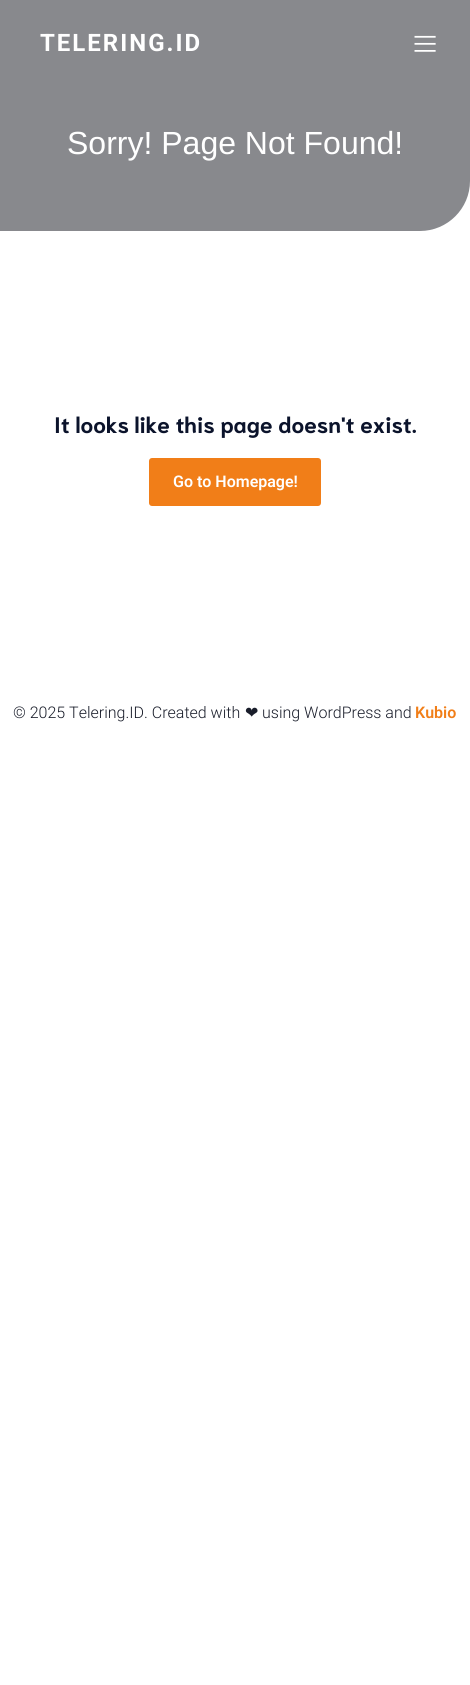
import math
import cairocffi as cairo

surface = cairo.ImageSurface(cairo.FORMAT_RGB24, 470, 1685)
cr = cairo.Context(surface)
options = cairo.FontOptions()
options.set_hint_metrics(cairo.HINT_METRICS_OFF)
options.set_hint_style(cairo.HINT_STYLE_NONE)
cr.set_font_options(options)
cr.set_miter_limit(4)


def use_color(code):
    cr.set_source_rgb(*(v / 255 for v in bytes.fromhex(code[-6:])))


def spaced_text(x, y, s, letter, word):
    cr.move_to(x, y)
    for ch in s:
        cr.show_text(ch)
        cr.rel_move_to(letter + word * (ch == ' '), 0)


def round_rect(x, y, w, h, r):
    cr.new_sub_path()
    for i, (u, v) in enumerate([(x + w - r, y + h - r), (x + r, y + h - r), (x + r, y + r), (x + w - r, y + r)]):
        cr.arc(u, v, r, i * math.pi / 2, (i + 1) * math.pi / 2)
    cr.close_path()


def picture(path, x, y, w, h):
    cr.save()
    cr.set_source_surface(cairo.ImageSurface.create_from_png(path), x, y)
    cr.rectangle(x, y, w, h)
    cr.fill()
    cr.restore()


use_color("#ffffff")
cr.paint()
use_color("#88898d")
cr.new_path()
cr.move_to(0, 0)
cr.line_to(470, 0)
cr.line_to(470, 181)
cr.curve_to(470, 208.5, 447.5, 231, 420, 231)
cr.line_to(0, 231)
cr.close_path()
cr.fill()
cr.select_font_face("Roboto", cairo.FONT_SLANT_NORMAL, cairo.FONT_WEIGHT_BOLD)
cr.set_font_size(24)
use_color("#ffffff")
spaced_text(40, 51, "TELERING.ID", 2, 0)
picture("img1.png", 414, 35, 22, 17)
cr.select_font_face("Liberation Sans")
cr.set_font_size(32)
cr.move_to(67, 154)
cr.show_text("Sorry! Page Not Found!")
cr.select_font_face("Niramit", cairo.FONT_SLANT_NORMAL, cairo.FONT_WEIGHT_BOLD)
cr.set_font_size(22.4)
use_color("#0b132b")
cr.move_to(54, 433)
cr.show_text("It looks like this page doesn't exist.")
use_color("#f17e18")
round_rect(149, 458, 172, 48, 3)
cr.fill()
cr.select_font_face("Roboto SemiBold")
cr.set_font_size(16)
use_color("#ffffff")
cr.move_to(173, 487)
cr.show_text("Go to Homepage!")
cr.select_font_face("Roboto Light")
use_color("#191d2a")
cr.move_to(13, 718)
cr.show_text("© 2025 Telering.ID. Created with")
cr.select_font_face("DejaVu Sans")
cr.move_to(245, 718)
cr.show_text("❤")
cr.select_font_face("Roboto Light")
cr.move_to(262, 718)
cr.show_text("using WordPress and")
cr.select_font_face("Roboto SemiBold")
use_color("#f17e18")
cr.move_to(415, 718)
cr.show_text("Kubio")
surface.write_to_png("result.png")
